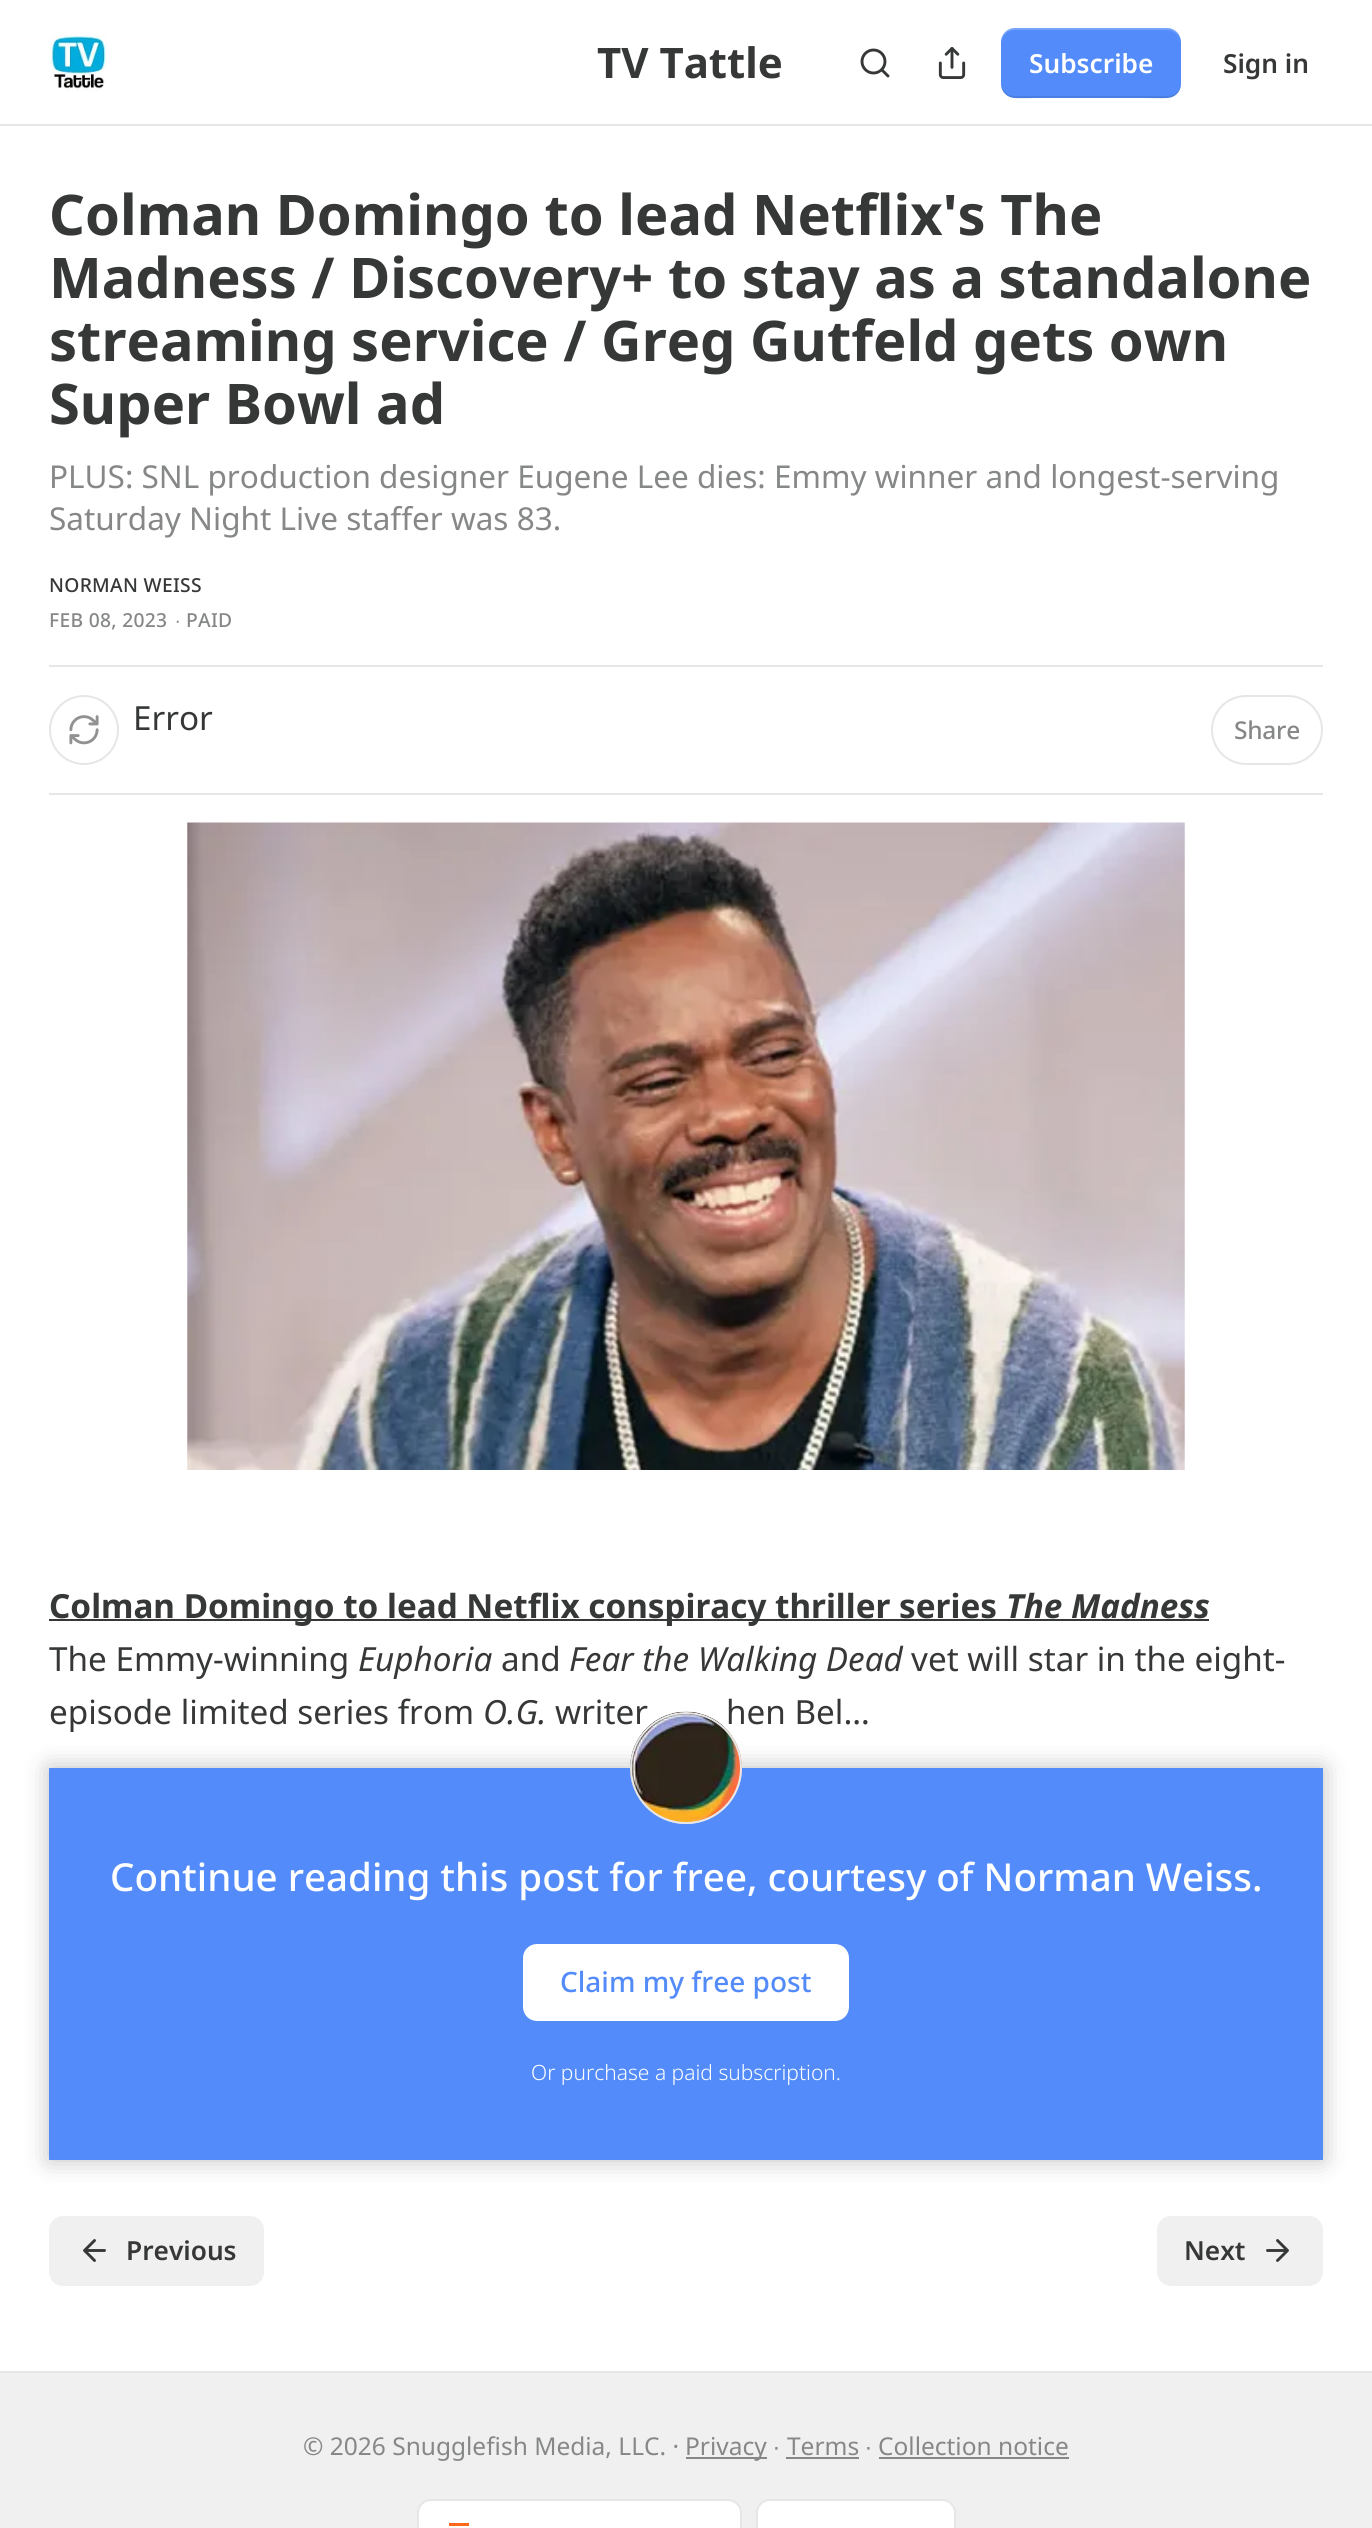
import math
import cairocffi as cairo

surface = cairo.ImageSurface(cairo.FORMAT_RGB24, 1372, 2528)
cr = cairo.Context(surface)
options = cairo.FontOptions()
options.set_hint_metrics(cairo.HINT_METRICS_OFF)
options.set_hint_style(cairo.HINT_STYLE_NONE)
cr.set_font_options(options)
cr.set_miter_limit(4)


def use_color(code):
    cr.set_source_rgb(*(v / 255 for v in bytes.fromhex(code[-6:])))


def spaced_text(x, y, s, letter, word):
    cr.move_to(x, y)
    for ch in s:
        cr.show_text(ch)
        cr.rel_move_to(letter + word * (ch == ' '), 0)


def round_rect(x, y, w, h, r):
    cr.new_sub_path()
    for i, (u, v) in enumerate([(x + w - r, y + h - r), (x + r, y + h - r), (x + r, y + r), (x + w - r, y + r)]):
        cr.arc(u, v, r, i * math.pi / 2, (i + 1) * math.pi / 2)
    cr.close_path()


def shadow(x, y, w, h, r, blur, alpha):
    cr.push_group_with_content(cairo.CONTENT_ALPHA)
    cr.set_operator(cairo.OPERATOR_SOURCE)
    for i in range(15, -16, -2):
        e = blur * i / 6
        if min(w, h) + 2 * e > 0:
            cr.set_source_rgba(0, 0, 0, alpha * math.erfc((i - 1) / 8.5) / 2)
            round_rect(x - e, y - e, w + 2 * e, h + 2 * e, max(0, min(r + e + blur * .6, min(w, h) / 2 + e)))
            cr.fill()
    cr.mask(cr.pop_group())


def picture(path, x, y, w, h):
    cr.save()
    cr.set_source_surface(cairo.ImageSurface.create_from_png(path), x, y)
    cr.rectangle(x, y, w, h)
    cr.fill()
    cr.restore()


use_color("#ffffff")
cr.paint()
use_color("#e6e6e6")
cr.rectangle(0, 124, 1372, 2)
cr.fill()
picture("img1.png", 50, 35, 57, 56)
cr.select_font_face("Noto Sans", cairo.FONT_SLANT_NORMAL, cairo.FONT_WEIGHT_BOLD)
cr.set_font_size(42)
use_color("#363737")
cr.move_to(597, 78)
cr.show_text("TV Tattle")
cr.new_path()
cr.arc(873.5, 61.5, 11.5, 0, 2 * math.pi)
cr.set_line_width(2.9)
cr.stroke()
cr.new_path()
cr.move_to(888, 76)
cr.line_to(882, 70)
cr.set_line_cap(cairo.LINE_CAP_ROUND)
cr.set_line_join(cairo.LINE_JOIN_ROUND)
cr.stroke()
picture("img2.png", 938, 47, 28, 32)
use_color("#538cfa")
round_rect(1001, 28, 180, 70, 14)
cr.fill()
cr.set_source_rgba(0, 0, 0, 0.1)
cr.new_path()
cr.move_to(1001, 82)
cr.curve_to(1001, 104, 1025, 98, 1040, 98)
cr.line_to(1142, 98)
cr.curve_to(1157, 98, 1181, 104, 1181, 82)
cr.curve_to(1181, 90, 1175, 96, 1167, 96)
cr.line_to(1015, 96)
cr.curve_to(1007, 96, 1001, 90, 1001, 82)
cr.close_path()
cr.fill()
cr.set_source_rgba(1, 1, 1, 0.2)
cr.new_path()
cr.move_to(1015, 30)
cr.line_to(1167, 30)
cr.curve_to(1175, 30, 1181, 36, 1181, 44)
cr.curve_to(1181, 22, 1157, 28, 1142, 28)
cr.line_to(1040, 28)
cr.curve_to(1025, 28, 1001, 22, 1001, 44)
cr.curve_to(1001, 36, 1007, 30, 1015, 30)
cr.close_path()
cr.fill()
cr.select_font_face("Noto Sans SemiBold")
cr.set_font_size(26.25)
use_color("#ffffff")
cr.move_to(1029, 73)
cr.show_text("Subscribe")
use_color("#363737")
cr.move_to(1223, 73)
cr.show_text("Sign in")
cr.select_font_face("Noto Sans", cairo.FONT_SLANT_NORMAL, cairo.FONT_WEIGHT_BOLD)
cr.set_font_size(56)
cr.move_to(49, 235)
cr.show_text("Colman Domingo to lead Netflix's The")
cr.move_to(49, 298)
cr.show_text("Madness / Discovery+ to stay as a standalone")
cr.move_to(49, 361)
cr.show_text("streaming service / Greg Gutfeld gets own")
cr.move_to(49, 424)
cr.show_text("Super Bowl ad")
cr.select_font_face("Noto Sans")
cr.set_font_size(31.5)
use_color("#868787")
cr.move_to(49, 488)
cr.show_text("PLUS: SNL production designer Eugene Lee dies: Emmy winner and longest-serving")
cr.move_to(49, 530)
cr.show_text("Saturday Night Live staffer was 83.")
cr.select_font_face("Noto Sans Medium")
cr.set_font_size(19.25)
use_color("#363737")
spaced_text(49, 592, "NORMAN WEISS", 0.3, 0)
use_color("#868787")
spaced_text(49, 627, "FEB 08, 2023", 0.3, 0)
cr.select_font_face("Liberation Sans")
spaced_text(175, 627, "∙", 0.3, 0)
cr.select_font_face("Noto Sans Medium")
spaced_text(186, 627, "PAID", 0.3, 0)
use_color("#e6e6e6")
cr.rectangle(49, 665, 1274, 2)
cr.fill()
cr.rectangle(49, 793, 1274, 2)
cr.fill()
cr.arc(84, 730, 34, 0, 2 * math.pi)
cr.set_line_width(2)
cr.set_line_cap(cairo.LINE_CAP_BUTT)
cr.set_line_join(cairo.LINE_JOIN_MITER)
cr.stroke()
picture("img3.png", 69, 715, 30, 30)
cr.select_font_face("Noto Sans")
cr.set_font_size(33.25)
use_color("#363737")
cr.move_to(133, 730)
cr.show_text("Error")
round_rect(1212, 696, 110, 68, 34)
use_color("#e6e6e6")
cr.stroke()
cr.select_font_face("Noto Sans Medium")
cr.set_font_size(24.5)
use_color("#868787")
spaced_text(1234, 739, "Share", -0.25, 0)
picture("img4.png", 187, 822, 998, 648)
use_color("#363737")
cr.rectangle(49, 1619, 1160, 2)
cr.fill()
cr.select_font_face("Noto Sans", cairo.FONT_SLANT_NORMAL, cairo.FONT_WEIGHT_BOLD)
cr.set_font_size(33.25)
cr.move_to(49, 1618)
cr.show_text("Colman Domingo to lead Netflix conspiracy thriller series")
cr.select_font_face("Noto Sans", cairo.FONT_SLANT_ITALIC, cairo.FONT_WEIGHT_BOLD)
cr.move_to(1006, 1618)
cr.show_text("The Madness")
cr.select_font_face("Noto Sans")
cr.move_to(49, 1671)
cr.show_text("The Emmy-winning")
cr.select_font_face("Noto Sans", cairo.FONT_SLANT_ITALIC)
cr.move_to(358, 1671)
cr.show_text("Euphoria")
cr.select_font_face("Noto Sans")
cr.move_to(501, 1671)
cr.show_text("and")
cr.select_font_face("Noto Sans", cairo.FONT_SLANT_ITALIC)
cr.move_to(569, 1671)
cr.show_text("Fear the Walking Dead")
cr.select_font_face("Noto Sans")
cr.move_to(911, 1671)
cr.show_text("vet will star in the eight-")
cr.move_to(49, 1724)
cr.show_text("episode limited series from")
cr.select_font_face("Noto Sans", cairo.FONT_SLANT_ITALIC)
cr.move_to(483, 1724)
cr.show_text("O.G.")
cr.select_font_face("Noto Sans")
cr.move_to(555, 1724)
cr.show_text("writer")
cr.move_to(726, 1724)
cr.show_text("hen Bel…")
use_color("#538cfa")
cr.rectangle(49, 1768, 1274, 392)
cr.fill()
use_color("#ffffff")
round_rect(524, 1945, 324, 75, 13)
cr.fill_preserve()
cr.stroke()
cr.save()
cr.set_fill_rule(cairo.FILL_RULE_EVEN_ODD)
cr.new_path()
cr.move_to(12, 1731)
cr.line_to(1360, 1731)
cr.line_to(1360, 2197)
cr.line_to(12, 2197)
cr.close_path()
cr.move_to(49, 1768)
cr.line_to(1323, 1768)
cr.line_to(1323, 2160)
cr.line_to(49, 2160)
cr.close_path()
cr.clip()
use_color("#000000")
shadow(49, 1768, 1274, 392, 0, 12, 0.25)
cr.restore()
cr.arc(686, 1768, 55, 0, 2 * math.pi)
use_color("#e6e6e6")
cr.stroke()
picture("img5.png", 630, 1711, 112, 113)
cr.arc(686, 1768, 55, 0, 2 * math.pi)
cr.stroke()
cr.select_font_face("Noto Sans Medium")
cr.set_font_size(38.5)
use_color("#ffffff")
cr.move_to(110, 1891)
cr.show_text("Continue reading this post for free, courtesy of Norman Weiss.")
cr.set_font_size(28)
use_color("#538cfa")
cr.move_to(560, 1992)
cr.show_text("Claim my free post")
cr.select_font_face("Noto Sans Light")
cr.set_font_size(21)
use_color("#ffffff")
cr.move_to(531, 2080)
cr.show_text("Or purchase a paid subscription.")
use_color("#f0f0f0")
round_rect(49, 2216, 215, 70, 14)
cr.fill()
cr.new_path()
cr.move_to(94.5, 2260.5)
cr.line_to(84.5, 2250.5)
cr.line_to(94.5, 2240.5)
cr.move_to(104.5, 2250.5)
cr.line_to(84.5, 2250.5)
use_color("#363737")
cr.set_line_width(2.9)
cr.set_line_cap(cairo.LINE_CAP_ROUND)
cr.set_line_join(cairo.LINE_JOIN_ROUND)
cr.stroke()
cr.select_font_face("Noto Sans SemiBold")
cr.set_font_size(26.25)
cr.move_to(126, 2260)
cr.show_text("Previous")
use_color("#f0f0f0")
round_rect(1157, 2216, 166, 70, 14)
cr.fill()
use_color("#363737")
cr.move_to(1184, 2260)
cr.show_text("Next")
cr.new_path()
cr.move_to(1267.5, 2250.5)
cr.line_to(1287.5, 2250.5)
cr.move_to(1277.5, 2240.5)
cr.line_to(1287.5, 2250.5)
cr.line_to(1277.5, 2260.5)
cr.stroke()
use_color("#f0f0f0")
cr.rectangle(0, 2373, 1372, 155)
cr.fill()
use_color("#e6e6e6")
cr.rectangle(0, 2371, 1372, 2)
cr.fill()
cr.select_font_face("Noto Sans")
cr.set_font_size(24.5)
use_color("#868787")
cr.move_to(303, 2455)
cr.show_text("© 2026 Snugglefish Media, LLC. ·")
cr.rectangle(686, 2457, 81, 2)
cr.fill()
cr.move_to(685, 2455)
cr.show_text("Privacy")
cr.select_font_face("Liberation Sans")
cr.move_to(773, 2455)
cr.show_text("∙")
cr.select_font_face("Noto Sans")
cr.move_to(787, 2455)
cr.show_text("Terms")
cr.rectangle(786, 2457, 73, 2)
cr.fill()
cr.select_font_face("Liberation Sans")
cr.move_to(865, 2455)
cr.show_text("∙")
cr.select_font_face("Noto Sans")
cr.move_to(878, 2455)
cr.show_text("Collection notice")
cr.rectangle(879, 2457, 190, 2)
cr.fill()
use_color("#ffffff")
round_rect(418, 2500, 323, 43, 13)
cr.fill_preserve()
use_color("#e6e6e6")
cr.set_line_width(2)
cr.set_line_cap(cairo.LINE_CAP_BUTT)
cr.set_line_join(cairo.LINE_JOIN_MITER)
cr.stroke()
use_color("#ff6719")
cr.rectangle(449, 2523, 20, 3)
cr.fill()
use_color("#ffffff")
round_rect(757, 2500, 198, 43, 13)
cr.fill_preserve()
use_color("#e6e6e6")
cr.stroke()
surface.write_to_png("result.png")
